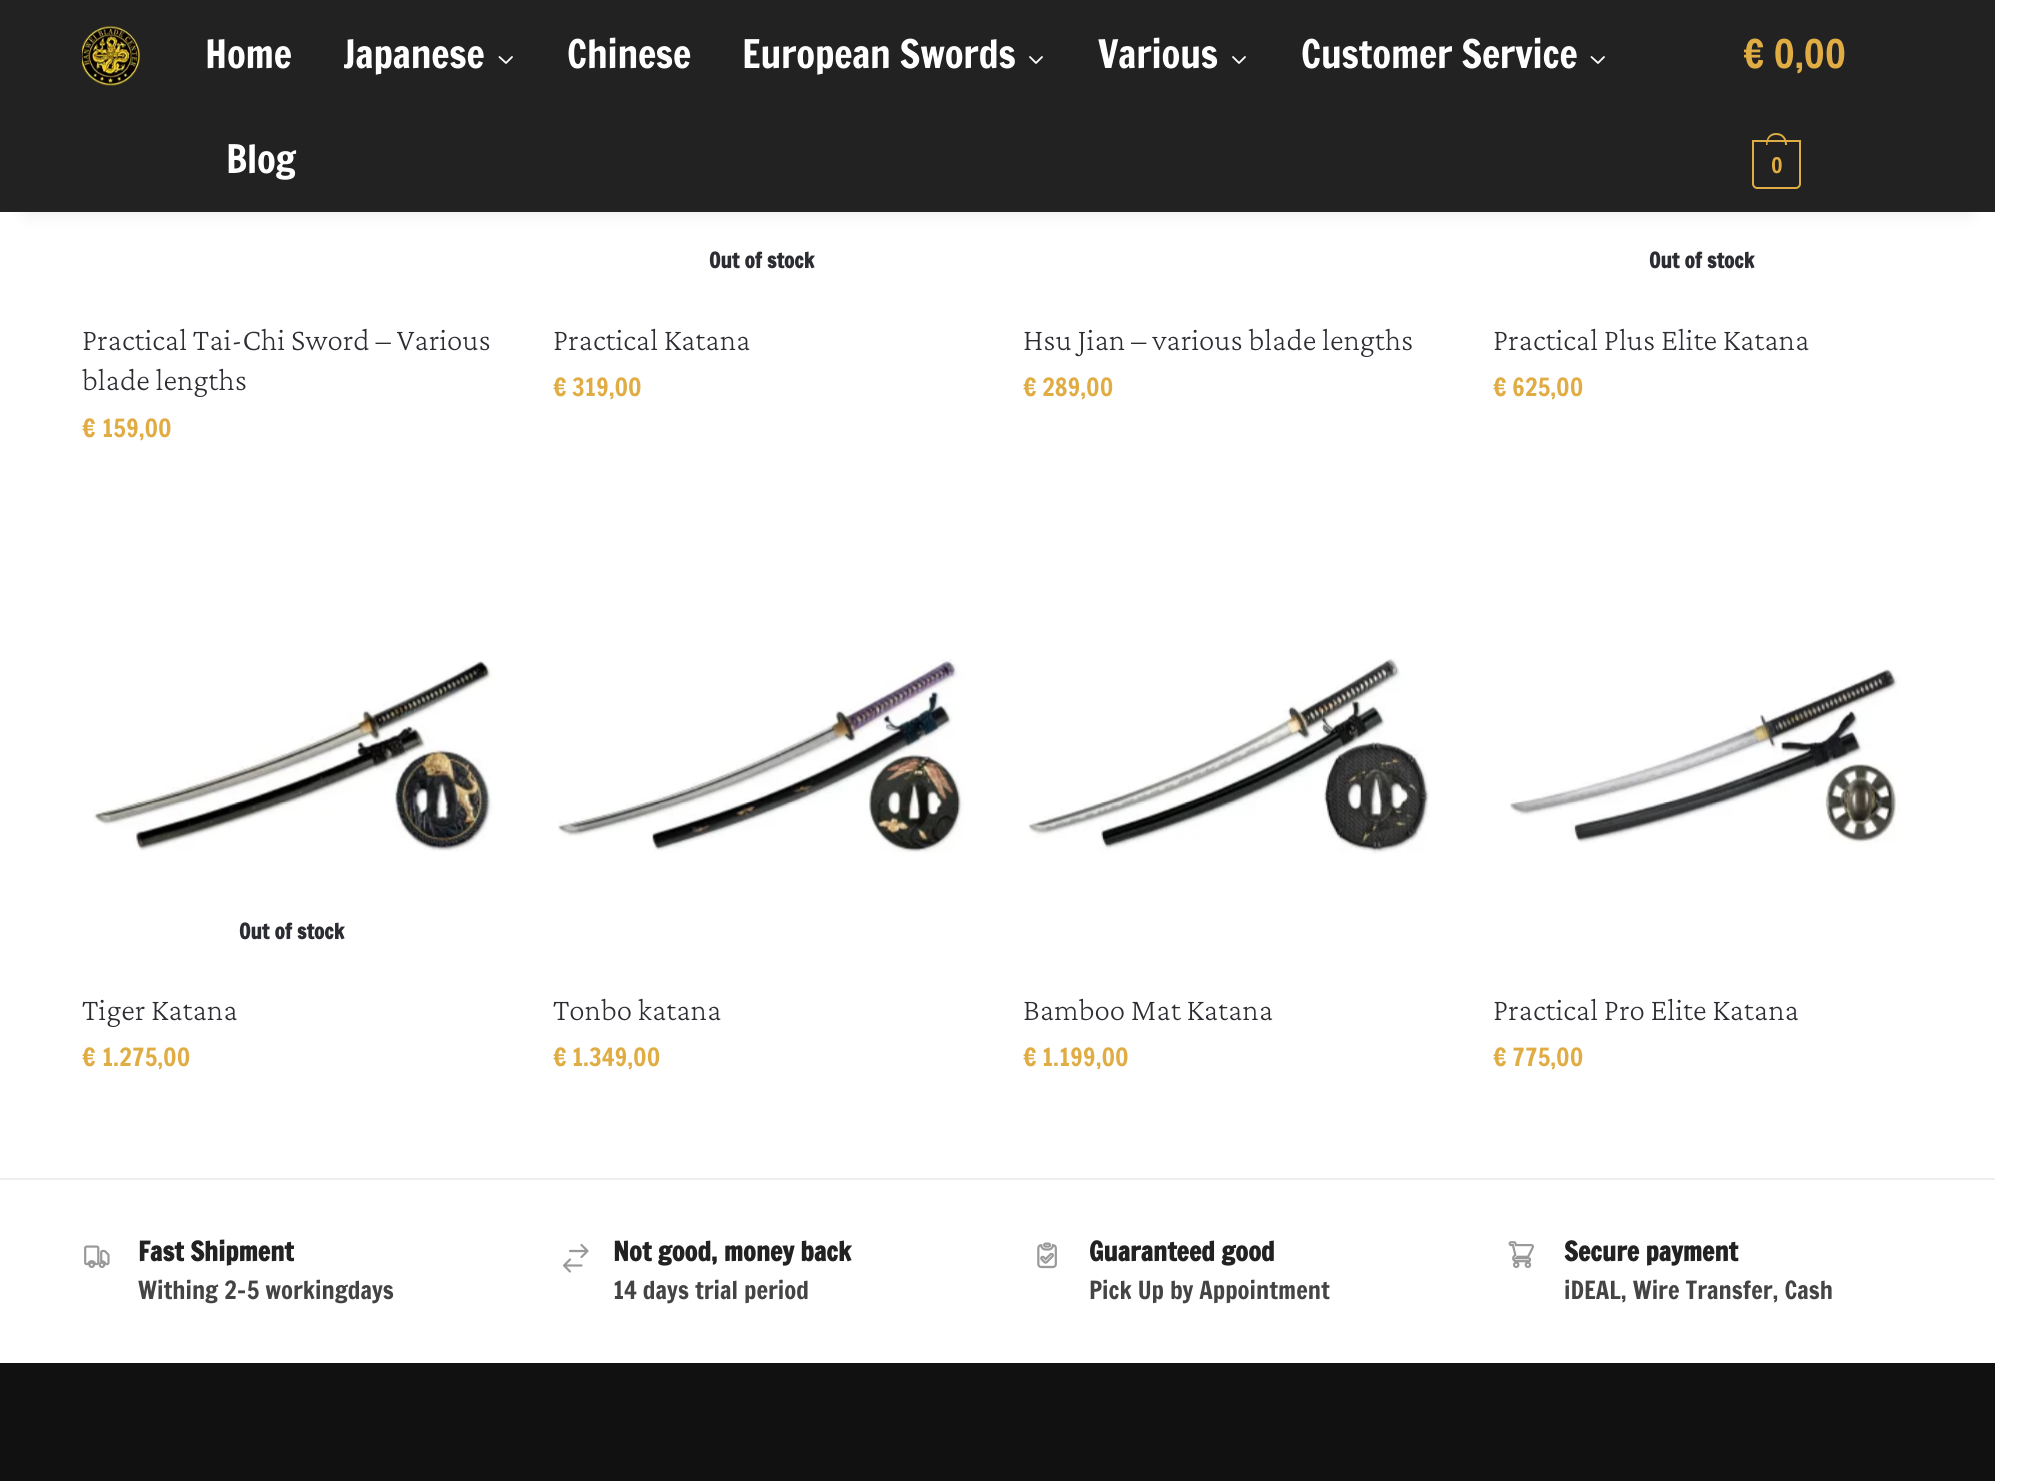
import math
import cairocffi as cairo

surface = cairo.ImageSurface(cairo.FORMAT_RGB24, 2021, 1481)
cr = cairo.Context(surface)
options = cairo.FontOptions()
options.set_hint_metrics(cairo.HINT_METRICS_OFF)
options.set_hint_style(cairo.HINT_STYLE_NONE)
cr.set_font_options(options)
cr.set_miter_limit(4)


def use_color(code):
    cr.set_source_rgb(*(v / 255 for v in bytes.fromhex(code[-6:])))


def spaced_text(x, y, s, letter, word):
    cr.move_to(x, y)
    for ch in s:
        cr.show_text(ch)
        cr.rel_move_to(letter + word * (ch == ' '), 0)


def round_rect(x, y, w, h, r):
    cr.new_sub_path()
    for i, (u, v) in enumerate([(x + w - r, y + h - r), (x + r, y + h - r), (x + r, y + r), (x + w - r, y + r)]):
        cr.arc(u, v, r, i * math.pi / 2, (i + 1) * math.pi / 2)
    cr.close_path()


def shadow(x, y, w, h, r, blur, alpha):
    cr.push_group_with_content(cairo.CONTENT_ALPHA)
    cr.set_operator(cairo.OPERATOR_SOURCE)
    for i in range(15, -16, -2):
        e = blur * i / 6
        if min(w, h) + 2 * e > 0:
            cr.set_source_rgba(0, 0, 0, alpha * math.erfc((i - 1) / 8.5) / 2)
            round_rect(x - e, y - e, w + 2 * e, h + 2 * e, max(0, min(r + e + blur * .6, min(w, h) / 2 + e)))
            cr.fill()
    cr.mask(cr.pop_group())


def picture(path, x, y, w, h):
    cr.save()
    cr.set_source_surface(cairo.ImageSurface.create_from_png(path), x, y)
    cr.rectangle(x, y, w, h)
    cr.fill()
    cr.restore()


use_color("#ffffff")
cr.paint()
use_color("#000000")
shadow(26, 53, 1943, 159, 0, 9, 0.1)
use_color("#222222")
cr.rectangle(0, 0, 1995, 212)
cr.fill()
picture("img1.png", 82, 26, 59, 60)
cr.select_font_face("Francois One")
cr.set_font_size(38.5)
use_color("#ffffff")
spaced_text(205, 68, "Home", -0.2, 0)
spaced_text(343, 68, "Japanese", -0.2, 0)
cr.new_path()
cr.move_to(512, 57)
cr.line_to(506, 63)
cr.line_to(499.5, 57)
cr.set_line_width(1.8)
cr.set_line_cap(cairo.LINE_CAP_ROUND)
cr.set_line_join(cairo.LINE_JOIN_ROUND)
cr.stroke()
spaced_text(567, 68, "Chinese", -0.2, 0)
spaced_text(742, 68, "European Swords", -0.2, 0)
cr.new_path()
cr.move_to(1042, 57)
cr.line_to(1036, 63)
cr.line_to(1030, 57)
cr.stroke()
spaced_text(1098, 68, "Various", -0.2, 0)
cr.new_path()
cr.move_to(1245, 57)
cr.line_to(1239, 63)
cr.line_to(1233, 57)
cr.stroke()
spaced_text(1301, 68, "Customer Service", -0.2, 0)
cr.new_path()
cr.move_to(1604, 57)
cr.line_to(1598, 63)
cr.line_to(1591.5, 57)
cr.stroke()
spaced_text(226, 173, "Blog", -0.2, 0)
use_color("#e0ac44")
spaced_text(1743, 68, "€ 0,00", -0.2, 0)
cr.new_path()
cr.move_to(1753, 141)
cr.line_to(1800, 141)
cr.line_to(1800, 184)
cr.curve_to(1800, 186, 1798, 188, 1796, 188)
cr.line_to(1757, 188)
cr.curve_to(1755, 188, 1753, 186, 1753, 184)
cr.close_path()
cr.set_line_width(2)
cr.set_line_cap(cairo.LINE_CAP_BUTT)
cr.set_line_join(cairo.LINE_JOIN_MITER)
cr.stroke()
cr.set_fill_rule(cairo.FILL_RULE_EVEN_ODD)
cr.new_path()
cr.move_to(1776, 133)
cr.curve_to(1783.5, 133, 1787, 138.5, 1787, 145)
cr.line_to(1766, 145)
cr.curve_to(1766, 138.5, 1769, 133, 1776, 133)
cr.close_path()
cr.move_to(1776, 135)
cr.curve_to(1782.5, 135, 1785, 139.5, 1785, 145)
cr.line_to(1767.5, 145)
cr.curve_to(1767.5, 139.5, 1770, 135, 1776, 135)
cr.close_path()
cr.fill()
cr.set_font_size(21)
spaced_text(1771, 173, "0", -1, 0)
cr.select_font_face("Crimson Pro ExtraLight")
cr.set_font_size(31.5)
use_color("#2c2d33")
cr.move_to(82, 350)
cr.show_text("Practical Tai-Chi Sword – Various")
cr.move_to(82, 390)
cr.show_text("blade lengths")
cr.select_font_face("Francois One")
cr.set_font_size(24.5)
use_color("#e0ac44")
cr.move_to(82, 437)
cr.show_text("€")
cr.move_to(102, 437)
cr.show_text("159,00")
cr.select_font_face("Francois One", cairo.FONT_SLANT_NORMAL, cairo.FONT_WEIGHT_BOLD)
cr.set_font_size(21)
use_color("#2c2d33")
cr.move_to(709, 268)
cr.show_text("Out of stock")
cr.select_font_face("Crimson Pro ExtraLight")
cr.set_font_size(31.5)
cr.move_to(553, 350)
cr.show_text("Practical Katana")
cr.select_font_face("Francois One")
cr.set_font_size(24.5)
use_color("#e0ac44")
cr.move_to(553, 396)
cr.show_text("€")
cr.move_to(572, 396)
cr.show_text("319,00")
cr.select_font_face("Crimson Pro ExtraLight")
cr.set_font_size(31.5)
use_color("#2c2d33")
cr.move_to(1023, 350)
cr.show_text("Hsu Jian – various blade lengths")
cr.select_font_face("Francois One")
cr.set_font_size(24.5)
use_color("#e0ac44")
cr.move_to(1023, 396)
cr.show_text("€")
cr.move_to(1042, 396)
cr.show_text("289,00")
cr.select_font_face("Francois One", cairo.FONT_SLANT_NORMAL, cairo.FONT_WEIGHT_BOLD)
cr.set_font_size(21)
use_color("#2c2d33")
cr.move_to(1649, 268)
cr.show_text("Out of stock")
cr.select_font_face("Crimson Pro ExtraLight")
cr.set_font_size(31.5)
cr.move_to(1493, 350)
cr.show_text("Practical Plus Elite Katana")
cr.select_font_face("Francois One")
cr.set_font_size(24.5)
use_color("#e0ac44")
cr.move_to(1493, 396)
cr.show_text("€")
cr.move_to(1512, 396)
cr.show_text("625,00")
picture("img2.png", 93, 661, 402, 190)
cr.select_font_face("Francois One", cairo.FONT_SLANT_NORMAL, cairo.FONT_WEIGHT_BOLD)
cr.set_font_size(21)
use_color("#2c2d33")
cr.move_to(239, 939)
cr.show_text("Out of stock")
cr.select_font_face("Crimson Pro ExtraLight")
cr.set_font_size(31.5)
cr.move_to(82, 1020)
cr.show_text("Tiger Katana")
cr.select_font_face("Francois One")
cr.set_font_size(24.5)
use_color("#e0ac44")
cr.move_to(82, 1066)
cr.show_text("€")
cr.move_to(102, 1066)
cr.show_text("1.275,00")
picture("img3.png", 558, 658, 406, 195)
cr.select_font_face("Crimson Pro ExtraLight")
cr.set_font_size(31.5)
use_color("#2c2d33")
cr.move_to(553, 1020)
cr.show_text("Tonbo katana")
cr.select_font_face("Francois One")
cr.set_font_size(24.5)
use_color("#e0ac44")
cr.move_to(553, 1066)
cr.show_text("€")
cr.move_to(572, 1066)
cr.show_text("1.349,00")
picture("img4.png", 1028, 658, 402, 196)
cr.select_font_face("Crimson Pro ExtraLight")
cr.set_font_size(31.5)
use_color("#2c2d33")
cr.move_to(1023, 1020)
cr.show_text("Bamboo Mat Katana")
cr.select_font_face("Francois One")
cr.set_font_size(24.5)
use_color("#e0ac44")
cr.move_to(1023, 1066)
cr.show_text("€")
cr.move_to(1042, 1066)
cr.show_text("1.199,00")
picture("img5.png", 1509, 669, 391, 175)
cr.select_font_face("Crimson Pro ExtraLight")
cr.set_font_size(31.5)
use_color("#2c2d33")
cr.move_to(1493, 1020)
cr.show_text("Practical Pro Elite Katana")
cr.select_font_face("Francois One")
cr.set_font_size(24.5)
use_color("#e0ac44")
cr.move_to(1493, 1066)
cr.show_text("€")
cr.move_to(1512, 1066)
cr.show_text("775,00")
use_color("#eeeeee")
cr.rectangle(0, 1178, 1995, 2)
cr.fill()
cr.select_font_face("Francois One", cairo.FONT_SLANT_NORMAL, cairo.FONT_WEIGHT_BOLD)
cr.set_font_size(26.25)
use_color("#222222")
cr.move_to(138, 1261)
cr.show_text("Fast Shipment")
picture("img6.png", 84, 1245, 26, 24)
cr.select_font_face("Francois One")
cr.set_font_size(24.5)
use_color("#444444")
cr.move_to(138, 1299)
cr.show_text("Withing 2-5 workingdays")
cr.select_font_face("Francois One", cairo.FONT_SLANT_NORMAL, cairo.FONT_WEIGHT_BOLD)
cr.set_font_size(26.25)
use_color("#222222")
cr.move_to(613, 1261)
cr.show_text("Not good, money back")
cr.new_path()
cr.move_to(570, 1251)
cr.line_to(587.5, 1251)
cr.move_to(587.5, 1251)
cr.line_to(581.5, 1245)
cr.move_to(587.5, 1251)
cr.line_to(581.5, 1257)
cr.move_to(581.5, 1265.5)
cr.line_to(564, 1265.5)
cr.move_to(564, 1265.5)
cr.line_to(570, 1271.5)
cr.move_to(564, 1265.5)
cr.line_to(570, 1259.5)
use_color("#999999")
cr.set_line_width(2.2)
cr.set_line_cap(cairo.LINE_CAP_ROUND)
cr.set_line_join(cairo.LINE_JOIN_ROUND)
cr.stroke()
cr.select_font_face("Francois One")
cr.set_font_size(24.5)
use_color("#444444")
cr.move_to(613, 1299)
cr.show_text("14 days trial period")
cr.select_font_face("Francois One", cairo.FONT_SLANT_NORMAL, cairo.FONT_WEIGHT_BOLD)
cr.set_font_size(26.25)
use_color("#222222")
cr.move_to(1089, 1261)
cr.show_text("Guaranteed good")
picture("img7.png", 1037, 1242, 20, 27)
cr.select_font_face("Francois One")
cr.set_font_size(24.5)
use_color("#444444")
cr.move_to(1089, 1299)
cr.show_text("Pick Up by Appointment")
cr.select_font_face("Francois One", cairo.FONT_SLANT_NORMAL, cairo.FONT_WEIGHT_BOLD)
cr.set_font_size(26.25)
use_color("#222222")
cr.move_to(1564, 1261)
cr.show_text("Secure payment")
picture("img8.png", 1508, 1241, 26, 27)
cr.select_font_face("Francois One")
cr.set_font_size(24.5)
use_color("#444444")
cr.move_to(1564, 1299)
cr.show_text("iDEAL, Wire Transfer, Cash")
use_color("#111111")
cr.rectangle(0, 1363, 1995, 118)
cr.fill()
surface.write_to_png("result.png")
